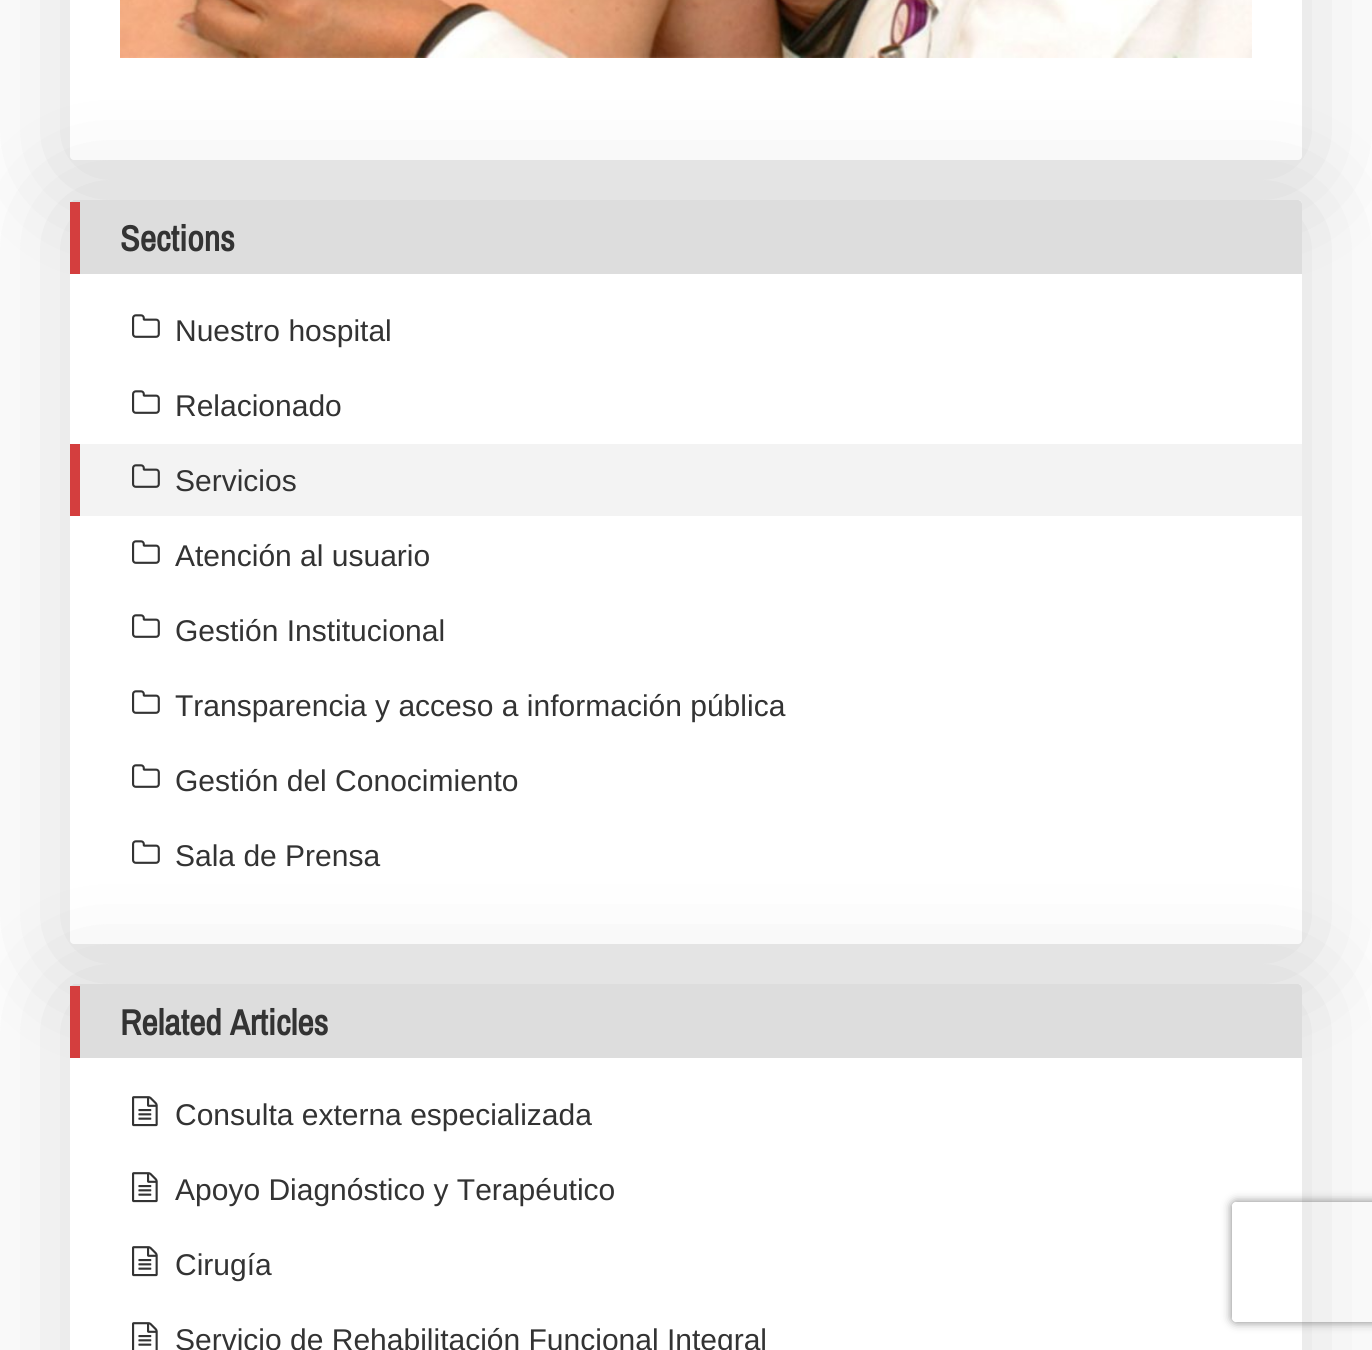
import math
import cairocffi as cairo

surface = cairo.ImageSurface(cairo.FORMAT_RGB24, 1372, 1350)
cr = cairo.Context(surface)
options = cairo.FontOptions()
options.set_hint_metrics(cairo.HINT_METRICS_OFF)
options.set_hint_style(cairo.HINT_STYLE_NONE)
cr.set_font_options(options)
cr.set_miter_limit(4)


def use_color(code):
    cr.set_source_rgb(*(v / 255 for v in bytes.fromhex(code[-6:])))


def round_rect(x, y, w, h, r):
    cr.new_sub_path()
    for i, (u, v) in enumerate([(x + w - r, y + h - r), (x + r, y + h - r), (x + r, y + r), (x + w - r, y + r)]):
        cr.arc(u, v, r, i * math.pi / 2, (i + 1) * math.pi / 2)
    cr.close_path()


def shadow(x, y, w, h, r, blur, alpha):
    cr.push_group_with_content(cairo.CONTENT_ALPHA)
    cr.set_operator(cairo.OPERATOR_SOURCE)
    for i in range(15, -16, -2):
        e = blur * i / 6
        if min(w, h) + 2 * e > 0:
            cr.set_source_rgba(0, 0, 0, alpha * math.erfc((i - 1) / 8.5) / 2)
            round_rect(x - e, y - e, w + 2 * e, h + 2 * e, max(0, min(r + e + blur * .6, min(w, h) / 2 + e)))
            cr.fill()
    cr.mask(cr.pop_group())


def picture(path, x, y, w, h):
    cr.save()
    cr.set_source_surface(cairo.ImageSurface.create_from_png(path), x, y)
    cr.rectangle(x, y, w, h)
    cr.fill()
    cr.restore()


use_color("#ffffff")
cr.paint()
use_color("#000000")
shadow(70, -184, 1232, 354, 4, 60, 0.15)
use_color("#ffffff")
round_rect(70, -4, 1232, 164, 4)
cr.fill()
picture("img1.png", 120, 0, 1132, 58)
use_color("#000000")
shadow(70, 210, 1232, 744, 4, 60, 0.15)
use_color("#ffffff")
round_rect(70, 200, 1232, 744, 4)
cr.fill()
use_color("#dddddd")
cr.new_path()
cr.move_to(74, 200)
cr.line_to(1298, 200)
cr.curve_to(1300, 200, 1302, 202, 1302, 204)
cr.line_to(1302, 274)
cr.line_to(70, 274)
cr.line_to(70, 204)
cr.curve_to(70, 202, 72, 200, 74, 200)
cr.close_path()
cr.fill()
use_color("#d43e3e")
cr.rectangle(70, 202, 10, 72)
cr.fill()
cr.select_font_face("Archivo Narrow", cairo.FONT_SLANT_NORMAL, cairo.FONT_WEIGHT_BOLD)
cr.set_font_size(36)
use_color("#333333")
cr.move_to(120, 251)
cr.show_text("Sections")
picture("img2.png", 132, 314, 28, 24)
cr.select_font_face("Liberation Sans")
cr.set_font_size(30)
cr.move_to(175, 341)
cr.show_text("Nuestro hospital")
picture("img2.png", 132, 390, 28, 24)
cr.move_to(175, 416)
cr.show_text("Relacionado")
use_color("#f3f3f3")
cr.rectangle(80, 444, 1222, 72)
cr.fill()
use_color("#d43e3e")
cr.rectangle(70, 444, 10, 72)
cr.fill()
picture("img3.png", 132, 464, 28, 24)
use_color("#333333")
cr.move_to(175, 491)
cr.show_text("Servicios")
picture("img2.png", 132, 540, 28, 24)
cr.move_to(175, 566)
cr.show_text("Atención al usuario")
picture("img2.png", 132, 614, 28, 24)
cr.move_to(175, 641)
cr.show_text("Gestión Institucional")
picture("img2.png", 132, 690, 28, 24)
cr.move_to(175, 716)
cr.show_text("Transparencia y acceso a información pública")
picture("img2.png", 132, 764, 28, 24)
cr.move_to(175, 791)
cr.show_text("Gestión del Conocimiento")
picture("img2.png", 132, 840, 28, 24)
cr.move_to(175, 866)
cr.show_text("Sala de Prensa")
use_color("#000000")
shadow(70, 994, 1232, 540, 4, 60, 0.15)
use_color("#ffffff")
round_rect(70, 984, 1232, 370, 4)
cr.fill()
use_color("#dddddd")
cr.new_path()
cr.move_to(74, 984)
cr.line_to(1298, 984)
cr.curve_to(1300, 984, 1302, 986, 1302, 988)
cr.line_to(1302, 1058)
cr.line_to(70, 1058)
cr.line_to(70, 988)
cr.curve_to(70, 986, 72, 984, 74, 984)
cr.close_path()
cr.fill()
use_color("#d43e3e")
cr.rectangle(70, 986, 10, 72)
cr.fill()
cr.select_font_face("Archivo Narrow", cairo.FONT_SLANT_NORMAL, cairo.FONT_WEIGHT_BOLD)
cr.set_font_size(36)
use_color("#333333")
cr.move_to(120, 1035)
cr.show_text("Related Articles")
picture("img4.png", 132, 1096, 26, 31)
cr.select_font_face("Liberation Sans")
cr.set_font_size(30)
cr.move_to(175, 1125)
cr.show_text("Consulta externa especializada")
picture("img4.png", 132, 1172, 26, 31)
cr.move_to(175, 1200)
cr.show_text("Apoyo Diagnóstico y Terapéutico")
picture("img4.png", 132, 1246, 26, 31)
cr.move_to(175, 1275)
cr.show_text("Cirugía")
picture("img5.png", 132, 1322, 26, 28)
cr.move_to(175, 1350)
cr.show_text("Servicio de Rehabilitación Funcional Integral")
cr.save()
cr.set_fill_rule(cairo.FILL_RULE_EVEN_ODD)
cr.new_path()
cr.move_to(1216, 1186)
cr.line_to(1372, 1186)
cr.line_to(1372, 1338)
cr.line_to(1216, 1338)
cr.close_path()
cr.move_to(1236, 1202)
cr.line_to(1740, 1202)
cr.curve_to(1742, 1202, 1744, 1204, 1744, 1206)
cr.line_to(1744, 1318)
cr.curve_to(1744, 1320, 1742, 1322, 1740, 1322)
cr.line_to(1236, 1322)
cr.curve_to(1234, 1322, 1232, 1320, 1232, 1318)
cr.line_to(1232, 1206)
cr.curve_to(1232, 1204, 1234, 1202, 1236, 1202)
cr.close_path()
cr.clip()
use_color("#808080")
shadow(1232, 1202, 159, 120, 4, 5, 1)
cr.restore()
surface.write_to_png("result.png")
